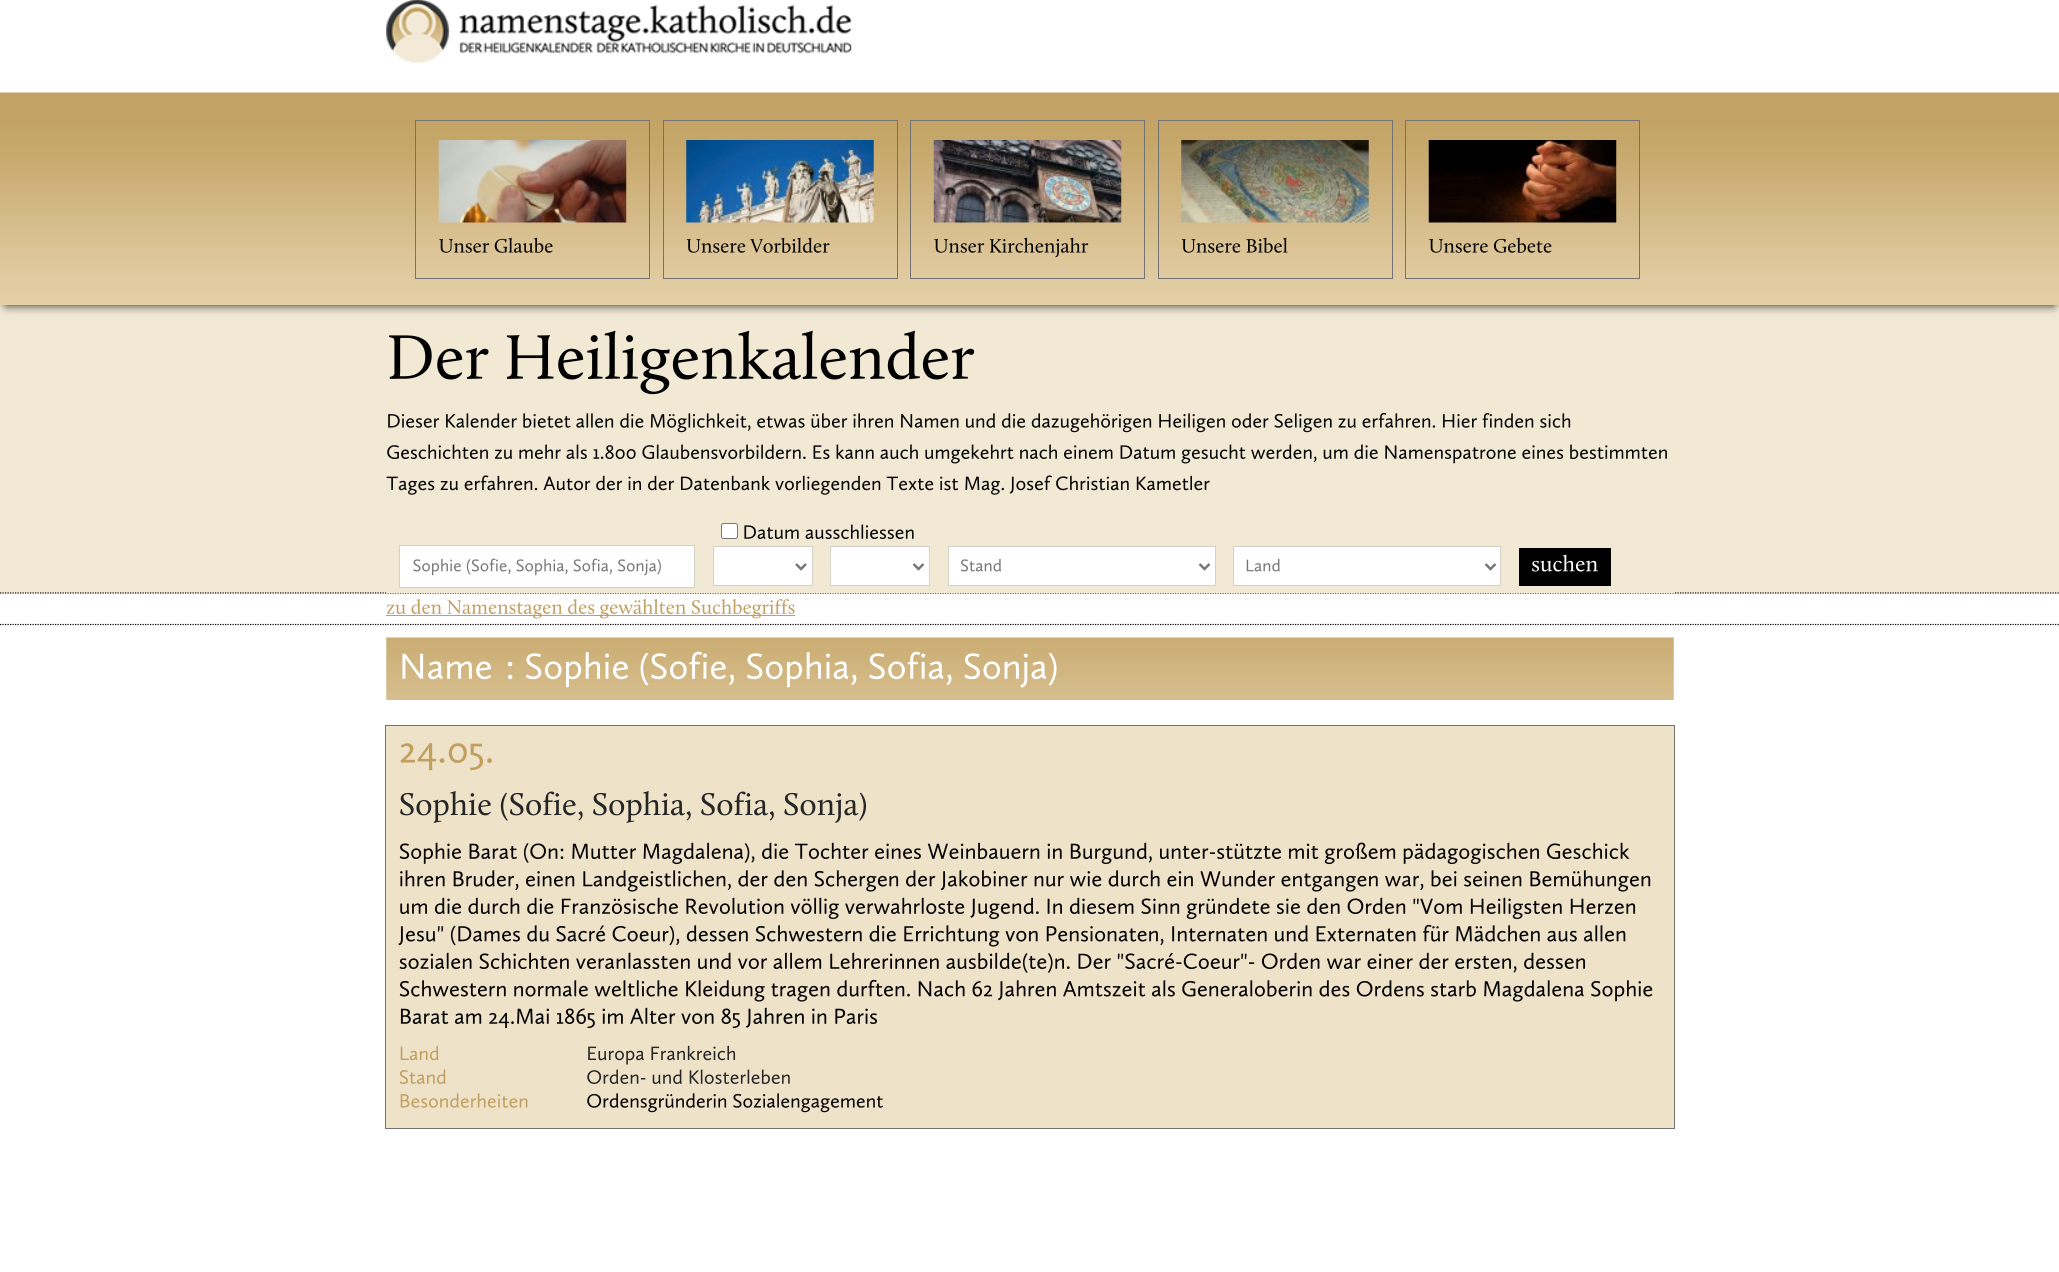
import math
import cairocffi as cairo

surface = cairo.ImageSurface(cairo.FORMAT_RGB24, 2059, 1272)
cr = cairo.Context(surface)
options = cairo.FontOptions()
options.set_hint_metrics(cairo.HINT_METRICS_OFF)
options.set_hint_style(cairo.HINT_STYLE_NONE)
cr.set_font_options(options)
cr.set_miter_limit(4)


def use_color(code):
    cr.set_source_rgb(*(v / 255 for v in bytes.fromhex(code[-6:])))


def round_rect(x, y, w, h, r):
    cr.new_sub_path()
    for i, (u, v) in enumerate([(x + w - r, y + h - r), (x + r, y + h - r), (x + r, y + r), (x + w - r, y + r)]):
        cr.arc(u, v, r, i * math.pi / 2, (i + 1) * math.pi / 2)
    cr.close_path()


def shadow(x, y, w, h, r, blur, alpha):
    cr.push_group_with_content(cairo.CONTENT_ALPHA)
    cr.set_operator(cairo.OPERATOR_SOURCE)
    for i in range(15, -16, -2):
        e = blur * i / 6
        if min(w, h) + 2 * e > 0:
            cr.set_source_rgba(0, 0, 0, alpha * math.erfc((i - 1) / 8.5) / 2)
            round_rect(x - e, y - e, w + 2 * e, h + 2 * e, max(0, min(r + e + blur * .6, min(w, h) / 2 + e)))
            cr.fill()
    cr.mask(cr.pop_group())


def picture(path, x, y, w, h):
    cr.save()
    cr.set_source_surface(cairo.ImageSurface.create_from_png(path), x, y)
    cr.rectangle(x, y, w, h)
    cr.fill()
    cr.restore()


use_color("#ffffff")
cr.paint()
picture("img1.png", 386, 0, 466, 63)
use_color("#f2e9d5")
cr.rectangle(0, 305, 2059, 288)
cr.fill()
use_color("#21201d")
shadow(6, 105, 2048, 200, 0, 5, 1)
picture("img2.png", 0, 92, 2059, 213)
cr.rectangle(415.5, 120.5, 234, 158)
use_color("#737373")
cr.set_line_width(1)
cr.stroke()
picture("img3.png", 438, 140, 189, 83)
picture("img4.png", 439, 237, 114, 16)
cr.rectangle(663.5, 120.5, 234, 158)
cr.stroke()
picture("img5.png", 686, 140, 188, 83)
picture("img6.png", 686, 237, 144, 16)
cr.rectangle(910.5, 120.5, 234, 158)
cr.stroke()
picture("img7.png", 933, 140, 189, 83)
picture("img8.png", 934, 237, 155, 21)
cr.rectangle(1158.5, 120.5, 234, 158)
cr.stroke()
picture("img9.png", 1181, 140, 188, 83)
picture("img10.png", 1181, 237, 107, 16)
cr.rectangle(1405.5, 120.5, 234, 158)
cr.stroke()
picture("img11.png", 1428, 140, 189, 83)
picture("img12.png", 1429, 237, 123, 16)
cr.new_path()
cr.move_to(0, 593)
cr.line_to(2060, 593)
use_color("#000000")
cr.set_line_width(1.2)
cr.set_dash([1.25, 1.25])
cr.stroke()
use_color("#f2e9d5")
cr.rectangle(386, 592, 1288, 1)
cr.fill()
picture("img13.png", 389, 330, 586, 65)
picture("img14.png", 388, 412, 1183, 21)
picture("img15.png", 387, 444, 1280, 20)
picture("img16.png", 386, 475, 573, 20)
picture("img17.png", 965, 475, 245, 20)
use_color("#ffffff")
round_rect(721.5, 523.5, 16, 15, 2)
cr.fill_preserve()
use_color("#767676")
cr.set_line_width(1)
cr.set_dash([])
cr.stroke()
picture("img18.png", 744, 524, 170, 15)
use_color("#ffffff")
cr.rectangle(399.5, 545.5, 295, 42)
cr.fill_preserve()
use_color("#d4d1c8")
cr.stroke()
picture("img19.png", 413, 558, 248, 18)
use_color("#ffffff")
cr.rectangle(713.5, 546.5, 99, 39)
cr.fill_preserve()
use_color("#d4d1c8")
cr.stroke()
cr.new_path()
cr.move_to(796, 564)
cr.line_to(801, 569)
cr.line_to(806, 564)
use_color("#777777")
cr.set_line_width(2.5)
cr.stroke()
use_color("#ffffff")
cr.rectangle(830.5, 546.5, 99, 39)
cr.fill_preserve()
use_color("#d4d1c8")
cr.set_line_width(1)
cr.stroke()
cr.new_path()
cr.move_to(913.5, 564)
cr.line_to(918.5, 569)
cr.line_to(923.5, 564)
use_color("#777777")
cr.set_line_width(2.5)
cr.stroke()
use_color("#ffffff")
cr.rectangle(948.5, 546.5, 267, 39)
cr.fill_preserve()
use_color("#d4d1c8")
cr.set_line_width(1)
cr.stroke()
cr.new_path()
cr.move_to(1199.5, 564)
cr.line_to(1204.5, 569)
cr.line_to(1209.5, 564)
use_color("#777777")
cr.set_line_width(2.5)
cr.stroke()
picture("img20.png", 960, 558, 41, 14)
use_color("#ffffff")
cr.rectangle(1233.5, 546.5, 267, 39)
cr.fill_preserve()
use_color("#d4d1c8")
cr.set_line_width(1)
cr.stroke()
cr.new_path()
cr.move_to(1485.5, 564)
cr.line_to(1490.5, 569)
cr.line_to(1495.5, 564)
use_color("#777777")
cr.set_line_width(2.5)
cr.stroke()
picture("img21.png", 1246, 558, 34, 14)
use_color("#000000")
cr.rectangle(1519, 548, 92, 38)
cr.fill()
picture("img22.png", 1532, 554, 66, 18)
cr.new_path()
cr.move_to(0, 624.5)
cr.line_to(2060, 624.5)
cr.set_line_width(1.2)
cr.set_dash([1.25, 1.25])
cr.stroke()
use_color("#c29f5f")
cr.rectangle(386, 615, 409, 1)
cr.fill()
picture("img23.png", 386, 599, 409, 20)
picture("img24.png", 386, 637, 1288, 63)
picture("img25.png", 402, 653, 89, 27)
picture("img26.png", 507, 651, 550, 37)
use_color("#eee2c8")
cr.rectangle(385.5, 725.5, 1289, 403)
cr.fill_preserve()
use_color("#737373")
cr.set_line_width(1)
cr.set_dash([])
cr.stroke()
picture("img27.png", 400, 743, 92, 28)
picture("img28.png", 400, 791, 467, 32)
picture("img29.png", 399, 842, 1231, 23)
picture("img30.png", 400, 870, 1251, 22)
picture("img31.png", 400, 897, 1236, 23)
picture("img32.png", 398, 924, 1228, 23)
picture("img33.png", 399, 952, 1186, 21)
picture("img34.png", 399, 979, 1254, 23)
picture("img35.png", 400, 1007, 477, 22)
picture("img36.png", 400, 1045, 39, 16)
picture("img37.png", 588, 1045, 148, 20)
picture("img38.png", 399, 1069, 47, 15)
picture("img39.png", 587, 1069, 203, 15)
picture("img40.png", 400, 1093, 128, 15)
picture("img41.png", 587, 1093, 296, 20)
surface.write_to_png("result.png")
